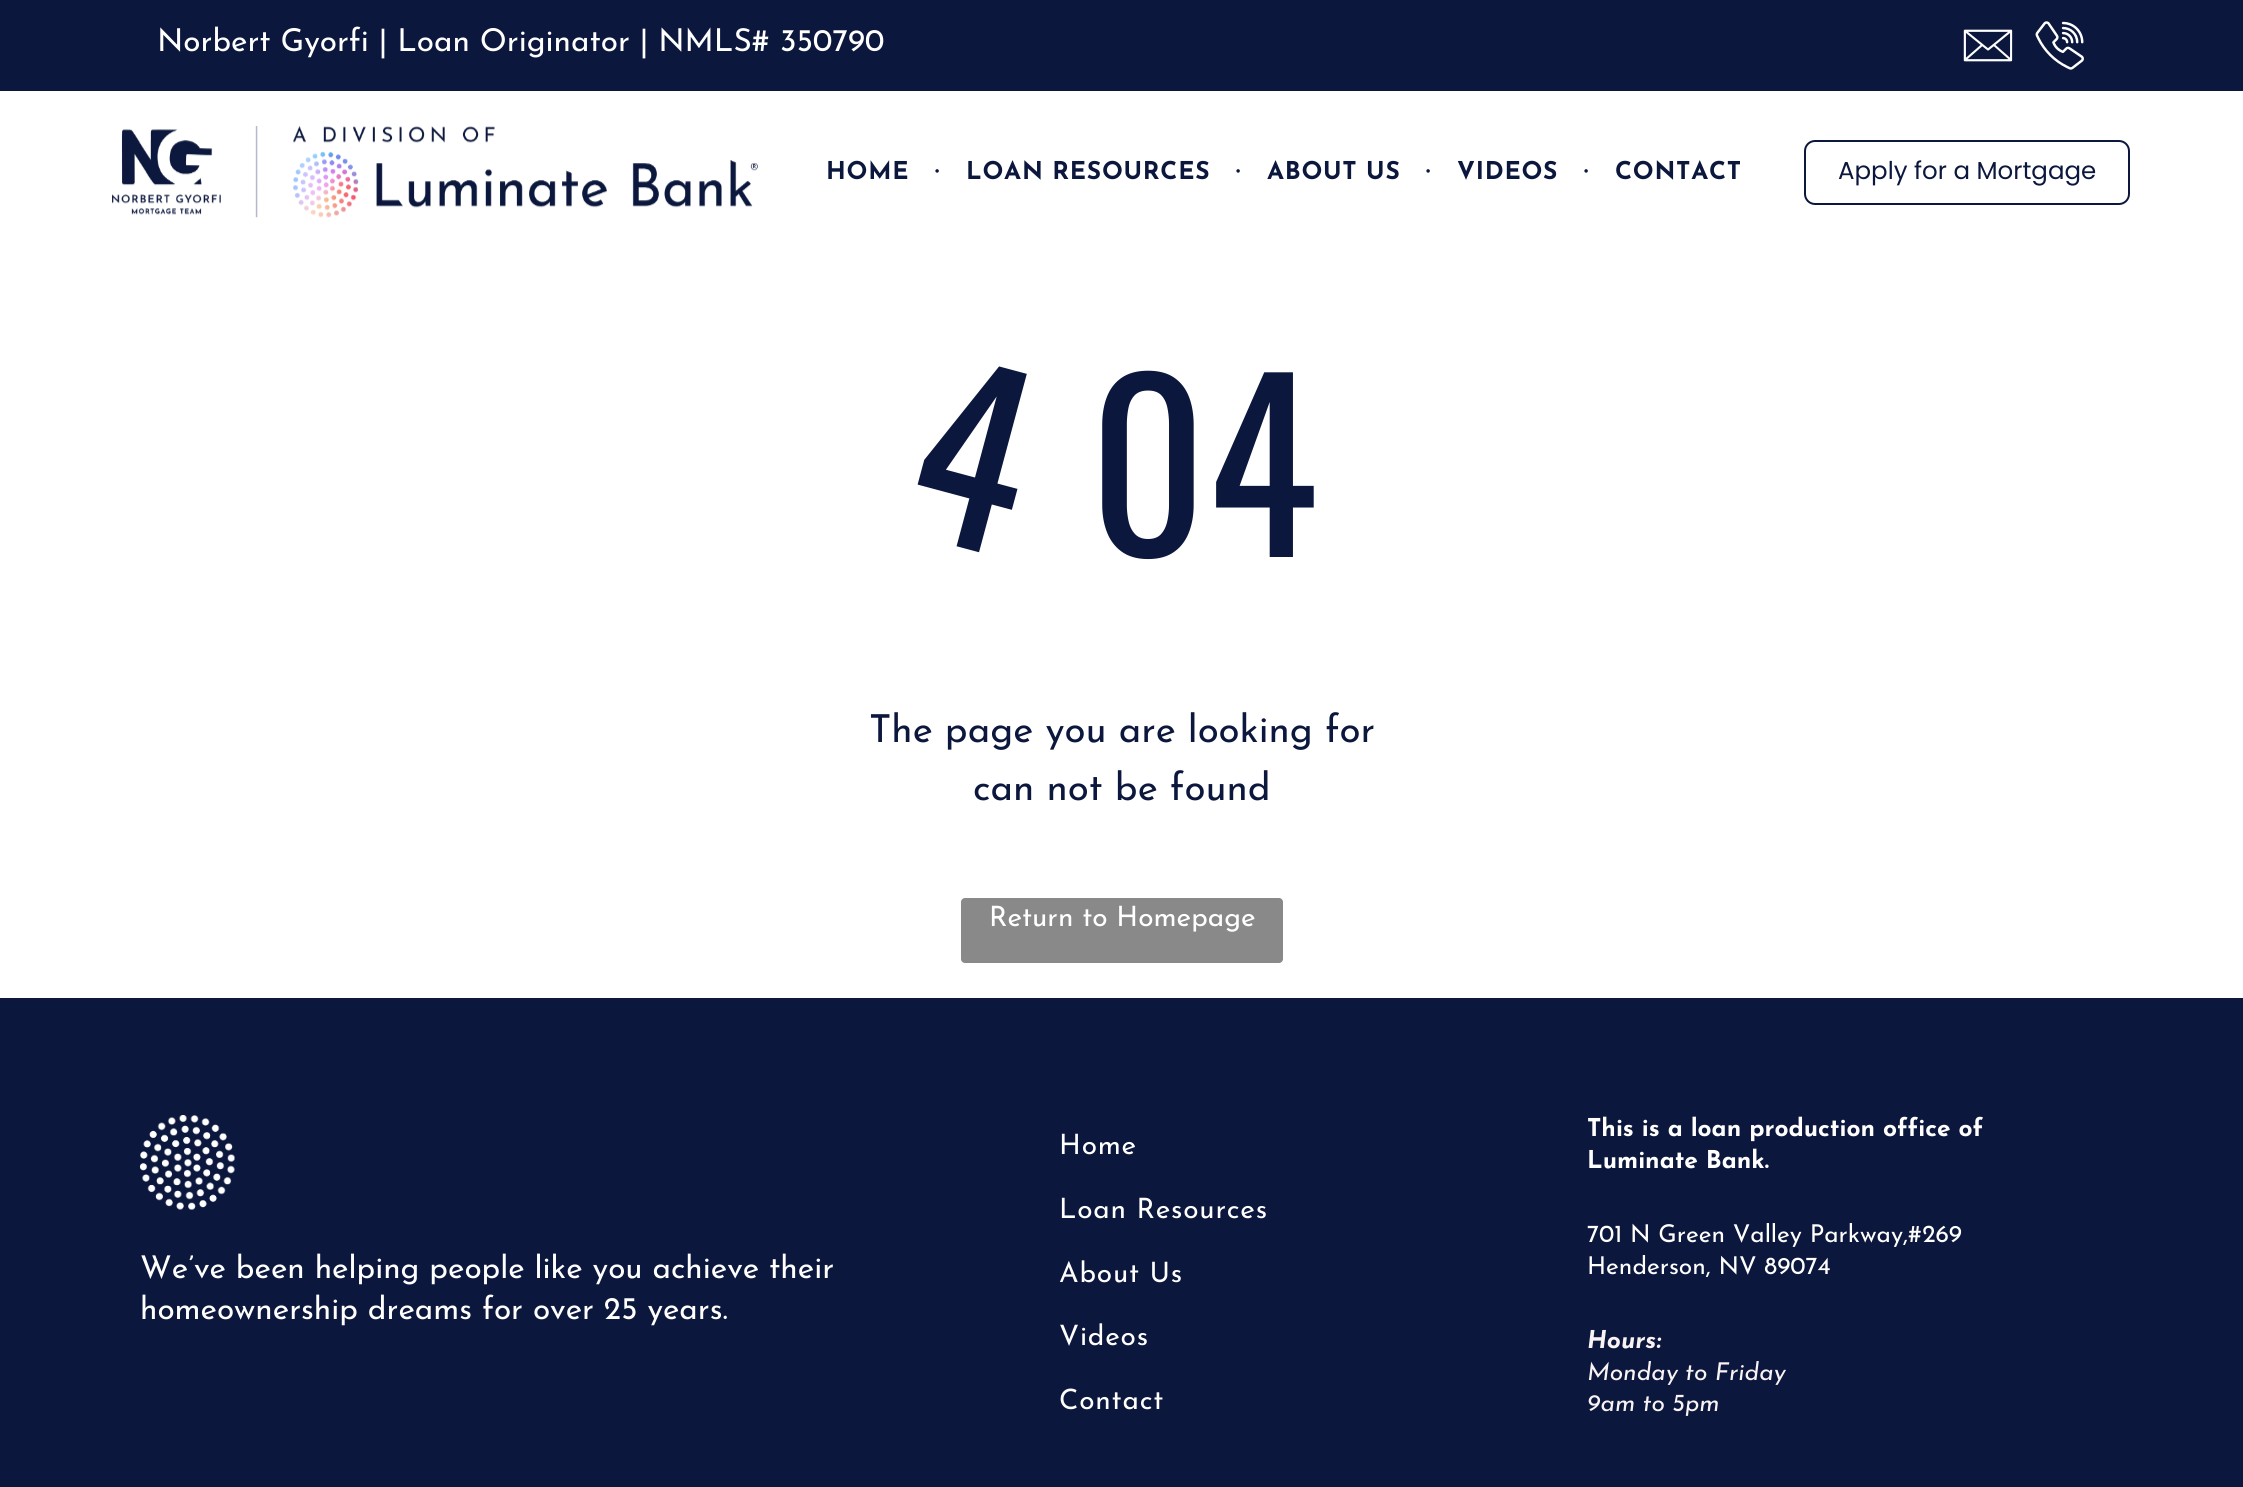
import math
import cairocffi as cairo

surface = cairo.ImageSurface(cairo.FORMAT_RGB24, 2243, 1487)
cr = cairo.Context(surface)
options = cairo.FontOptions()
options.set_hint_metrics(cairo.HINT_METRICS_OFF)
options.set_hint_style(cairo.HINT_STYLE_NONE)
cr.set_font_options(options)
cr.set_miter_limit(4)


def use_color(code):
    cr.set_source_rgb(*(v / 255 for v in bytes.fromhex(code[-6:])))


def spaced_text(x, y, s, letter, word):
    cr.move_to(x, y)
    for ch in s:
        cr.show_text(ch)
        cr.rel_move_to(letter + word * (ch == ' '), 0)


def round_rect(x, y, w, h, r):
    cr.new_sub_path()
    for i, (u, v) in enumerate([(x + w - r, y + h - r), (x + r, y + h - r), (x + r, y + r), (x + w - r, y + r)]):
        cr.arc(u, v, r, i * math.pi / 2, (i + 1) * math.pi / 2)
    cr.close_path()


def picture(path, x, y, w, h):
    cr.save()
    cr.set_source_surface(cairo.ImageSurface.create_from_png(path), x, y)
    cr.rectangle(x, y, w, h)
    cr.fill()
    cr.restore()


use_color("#ffffff")
cr.paint()
use_color("#0c173d")
cr.rectangle(0, 0, 2243, 91)
cr.fill()
cr.select_font_face("Josefin Sans")
cr.set_font_size(31.5)
use_color("#ffffff")
cr.move_to(157, 51)
cr.show_text("Norbert Gyorfi | Loan Originator | NMLS# 350790")
picture("img1.png", 1963, 29, 50, 33)
picture("img2.png", 2035, 21, 49, 49)
picture("img3.png", 112, 126, 646, 92)
cr.select_font_face("Josefin Sans", cairo.FONT_SLANT_NORMAL, cairo.FONT_WEIGHT_BOLD)
cr.set_font_size(24.5)
use_color("#0c173d")
spaced_text(826, 179, "HOME", 0.75, 0)
cr.move_to(935, 178)
cr.show_text("·")
spaced_text(966, 179, "LOAN RESOURCES", 0.75, 0)
cr.move_to(1236, 178)
cr.show_text("·")
spaced_text(1267, 179, "ABOUT US", 0.75, 0)
cr.move_to(1426, 178)
cr.show_text("·")
spaced_text(1457, 179, "VIDEOS", 0.75, 0)
cr.move_to(1584, 178)
cr.show_text("·")
spaced_text(1615, 179, "CONTACT", 0.75, 0)
round_rect(1805, 141, 324, 63, 10)
cr.stroke()
cr.select_font_face("Poppins")
cr.move_to(1838, 179)
cr.show_text("Apply for a Mortgage")
cr.select_font_face("Oswald")
cr.set_font_size(228)
cr.save()
cr.translate(896, 530)
cr.rotate(15 * math.pi / 180)
cr.move_to(0, 0)
cr.show_text("4")
cr.restore()
cr.move_to(1089, 557)
cr.show_text("04")
cr.select_font_face("Josefin Sans")
cr.set_font_size(38.5)
cr.move_to(869, 742)
cr.show_text("The page you are looking for")
cr.move_to(973, 800)
cr.show_text("can not be found")
use_color("#898989")
round_rect(961, 898, 322, 65, 4)
cr.fill()
cr.set_font_size(28)
use_color("#ffffff")
cr.move_to(989, 926)
cr.show_text("Return to Homepage")
use_color("#0c173d")
cr.rectangle(0, 998, 2243, 489)
cr.fill()
picture("img4.png", 140, 1115, 95, 95)
cr.set_font_size(31.5)
use_color("#ffffff")
cr.move_to(140, 1278)
cr.show_text("We’ve been helping people like you achieve their")
cr.move_to(140, 1319)
cr.show_text("homeownership dreams for over 25 years.")
cr.set_font_size(28)
spaced_text(1059, 1154, "Home", 0.8, 0)
spaced_text(1059, 1218, "Loan Resources", 0.8, 0)
spaced_text(1059, 1282, "About Us", 0.8, 0)
spaced_text(1059, 1345, "Videos", 0.8, 0)
spaced_text(1059, 1409, "Contact", 0.8, 0)
cr.select_font_face("Josefin Sans", cairo.FONT_SLANT_NORMAL, cairo.FONT_WEIGHT_BOLD)
cr.set_font_size(24.5)
cr.move_to(1587, 1136)
cr.show_text("This is a loan production office of")
cr.move_to(1587, 1168)
cr.show_text("Luminate Bank.")
cr.select_font_face("Josefin Sans")
cr.move_to(1587, 1242)
cr.show_text("701 N Green Valley Parkway,#269")
cr.move_to(1587, 1274)
cr.show_text("Henderson, NV 89074")
cr.select_font_face("Josefin Sans", cairo.FONT_SLANT_ITALIC, cairo.FONT_WEIGHT_BOLD)
use_color("#f9f3f3")
cr.move_to(1587, 1348)
cr.show_text("Hours:")
cr.select_font_face("Josefin Sans", cairo.FONT_SLANT_ITALIC)
cr.move_to(1587, 1380)
cr.show_text("Monday to Friday")
cr.move_to(1587, 1411)
cr.show_text("9am to 5pm")
surface.write_to_png("result.png")
